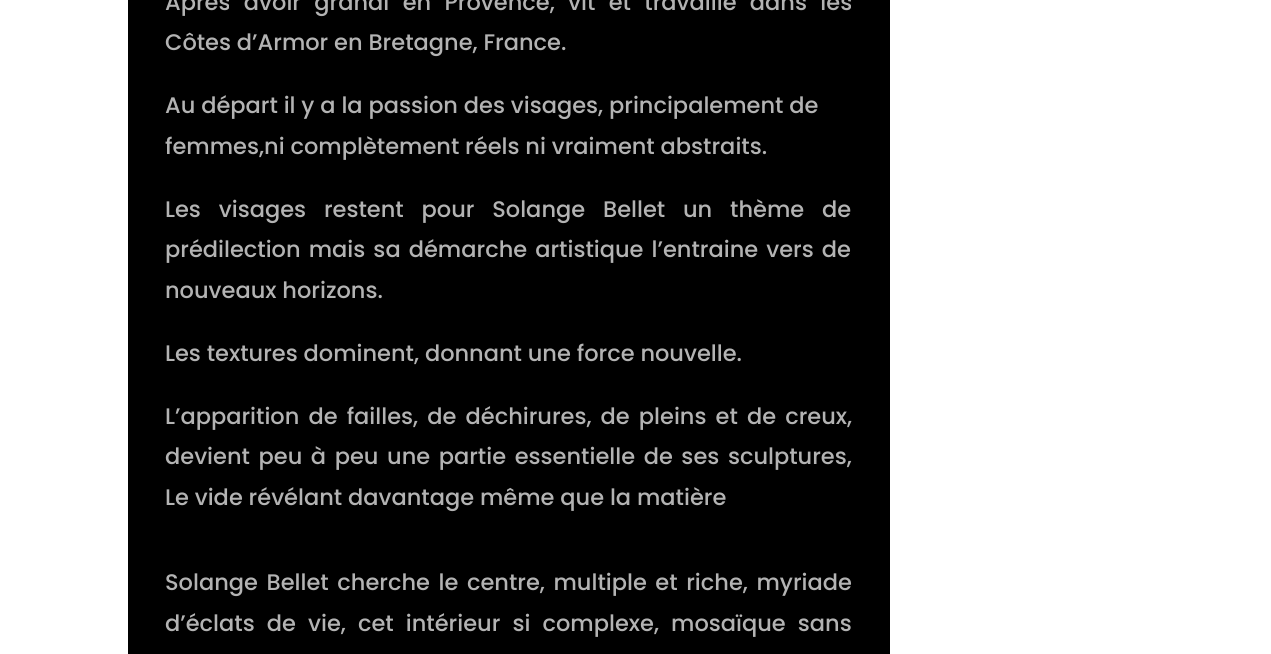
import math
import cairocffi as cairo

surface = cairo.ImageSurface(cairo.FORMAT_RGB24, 1271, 654)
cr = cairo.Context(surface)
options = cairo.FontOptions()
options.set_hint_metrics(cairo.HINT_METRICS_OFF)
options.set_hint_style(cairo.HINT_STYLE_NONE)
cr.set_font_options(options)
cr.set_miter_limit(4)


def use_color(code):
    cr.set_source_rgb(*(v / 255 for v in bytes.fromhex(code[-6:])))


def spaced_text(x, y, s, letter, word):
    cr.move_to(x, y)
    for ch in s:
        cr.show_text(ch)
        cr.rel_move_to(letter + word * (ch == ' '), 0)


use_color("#ffffff")
cr.paint()
use_color("#000000")
cr.rectangle(128, 0, 762, 654)
cr.fill()
cr.select_font_face("Poppins Medium")
cr.set_font_size(22.5)
use_color("#b3b3b3")
spaced_text(165, 10, "Après avoir grandi en Provence, vit et travaille dans les", 0, 7.5)
cr.move_to(165, 50)
cr.show_text("Côtes d’Armor en Bretagne, France.")
cr.move_to(165, 113)
cr.show_text("Au départ il y a la passion des visages, principalement de")
cr.move_to(165, 154)
cr.show_text("femmes,ni complètement réels ni vraiment abstraits.")
spaced_text(165, 217, "Les visages restent pour Solange Bellet un thème de", 0, 12)
spaced_text(165, 257, "prédilection mais sa démarche artistique l’entraine vers de", 0, 2.25)
cr.move_to(165, 298)
cr.show_text("nouveaux horizons.")
cr.move_to(165, 361)
cr.show_text("Les textures dominent, donnant une force nouvelle.")
spaced_text(165, 424, "L’apparition de failles, de déchirures, de pleins et de creux,", 0, 3.25)
spaced_text(165, 464, "devient peu à peu une partie essentielle de ses sculptures,", 0, 2.75)
cr.move_to(165, 505)
cr.show_text("Le vide révélant davantage même que la matière")
spaced_text(165, 590, "Solange Bellet cherche le centre, multiple et riche, myriade", 0, 2.75)
spaced_text(165, 631, "d’éclats de vie, cet intérieur si complexe, mosaïque sans", 0, 6.25)
surface.write_to_png("result.png")
